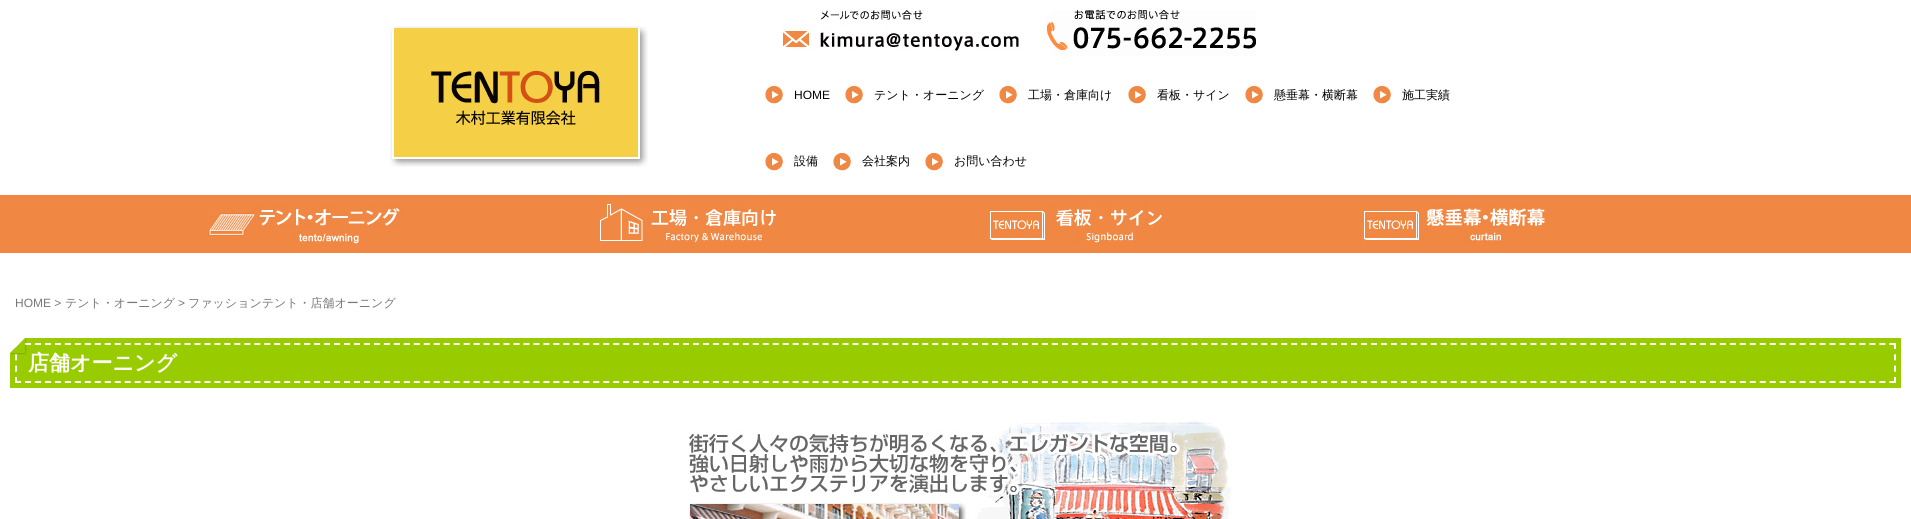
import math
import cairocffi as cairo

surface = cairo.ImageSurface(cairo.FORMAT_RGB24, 1911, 519)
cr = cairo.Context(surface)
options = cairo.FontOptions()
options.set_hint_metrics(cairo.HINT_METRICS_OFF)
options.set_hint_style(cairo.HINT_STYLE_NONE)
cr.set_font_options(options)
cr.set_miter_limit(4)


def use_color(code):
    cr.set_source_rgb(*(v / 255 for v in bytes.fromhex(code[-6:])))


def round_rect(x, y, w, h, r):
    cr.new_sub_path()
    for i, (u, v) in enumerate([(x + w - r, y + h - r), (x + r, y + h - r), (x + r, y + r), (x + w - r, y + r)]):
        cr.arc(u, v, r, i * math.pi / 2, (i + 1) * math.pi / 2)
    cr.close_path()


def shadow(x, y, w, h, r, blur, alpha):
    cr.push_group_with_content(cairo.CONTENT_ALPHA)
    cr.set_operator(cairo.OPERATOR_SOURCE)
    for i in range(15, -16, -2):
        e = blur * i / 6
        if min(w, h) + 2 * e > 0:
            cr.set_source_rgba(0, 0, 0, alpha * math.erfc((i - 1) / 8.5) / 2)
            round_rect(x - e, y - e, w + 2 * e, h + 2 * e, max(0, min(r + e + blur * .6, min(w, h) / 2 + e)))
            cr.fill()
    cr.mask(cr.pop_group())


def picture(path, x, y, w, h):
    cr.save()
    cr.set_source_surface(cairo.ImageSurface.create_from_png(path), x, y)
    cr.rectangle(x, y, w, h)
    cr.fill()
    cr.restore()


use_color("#ffffff")
cr.paint()
picture("img1.png", 390, 26, 258, 141)
picture("img2.png", 781, 10, 475, 46)
picture("img3.png", 765, 86, 18, 18)
cr.select_font_face("Liberation Sans")
cr.set_font_size(12)
use_color("#000000")
cr.move_to(794, 99)
cr.show_text("HOME")
picture("img3.png", 845, 86, 18, 18)
cr.select_font_face("WenQuanYi Zen Hei Medium")
cr.move_to(874, 99)
cr.show_text("テント・オーニング")
picture("img3.png", 999, 86, 18, 18)
cr.move_to(1028, 99)
cr.show_text("工場・倉庫向け")
picture("img3.png", 1128, 86, 18, 18)
cr.move_to(1157, 99)
cr.show_text("看板・サイン")
picture("img3.png", 1245, 86, 18, 18)
cr.move_to(1274, 99)
cr.show_text("懸垂幕・横断幕")
picture("img3.png", 1373, 86, 18, 18)
cr.move_to(1402, 99)
cr.show_text("施工実績")
picture("img3.png", 765, 153, 18, 18)
cr.move_to(794, 165)
cr.show_text("設備")
picture("img3.png", 833, 153, 18, 18)
cr.move_to(862, 165)
cr.show_text("会社案内")
picture("img3.png", 925, 153, 18, 18)
cr.move_to(954, 165)
cr.show_text("お問い合わせ")
use_color("#f08743")
cr.rectangle(0, 195, 1911, 58)
cr.fill()
picture("img4.png", 208, 205, 196, 39)
picture("img5.png", 596, 203, 183, 40)
picture("img6.png", 987, 203, 175, 40)
picture("img7.png", 1361, 204, 184, 39)
cr.select_font_face("Liberation Sans")
use_color("#777777")
cr.move_to(15, 307)
cr.show_text("HOME >")
cr.select_font_face("WenQuanYi Zen Hei Medium")
cr.move_to(65, 307)
cr.show_text("テント・オーニング")
cr.select_font_face("Liberation Sans")
cr.move_to(178, 307)
cr.show_text(">")
cr.select_font_face("WenQuanYi Zen Hei Medium")
cr.move_to(188, 307)
cr.show_text("ファッションテント・店舗オーニング")
cr.rectangle(12.5, 340.5, 1886, 45)
use_color("#99cc00")
cr.set_line_width(5)
cr.stroke()
cr.rectangle(15, 343, 1881, 40)
cr.fill()
cr.new_path()
cr.move_to(15, 344)
cr.line_to(1896, 344)
use_color("#ffffff")
cr.set_line_width(2)
cr.set_dash([6, 3.97])
cr.stroke()
cr.new_path()
cr.move_to(1895, 343)
cr.line_to(1895, 383)
cr.set_dash([6, 5.33])
cr.stroke()
cr.new_path()
cr.move_to(15, 382)
cr.line_to(1896, 382)
cr.set_dash([6, 3.97])
cr.stroke()
cr.new_path()
cr.move_to(16, 343)
cr.line_to(16, 383)
cr.set_dash([6, 5.33])
cr.stroke()
use_color("#000000")
shadow(11, 339, 15, 15, 0, 0.5, 0.15)
use_color("#99cc00")
cr.new_path()
cr.move_to(25, 353)
cr.line_to(10, 353)
cr.line_to(25, 338)
cr.close_path()
cr.fill()
use_color("#ffffff")
cr.new_path()
cr.move_to(10, 353)
cr.line_to(10, 338)
cr.line_to(25, 338)
cr.close_path()
cr.fill()
cr.select_font_face("WenQuanYi Zen Hei", cairo.FONT_SLANT_NORMAL, cairo.FONT_WEIGHT_BOLD)
cr.set_font_size(21)
cr.move_to(28, 370)
cr.show_text("店舗オーニング")
picture("img8.png", 688, 421, 543, 98)
surface.write_to_png("result.png")
